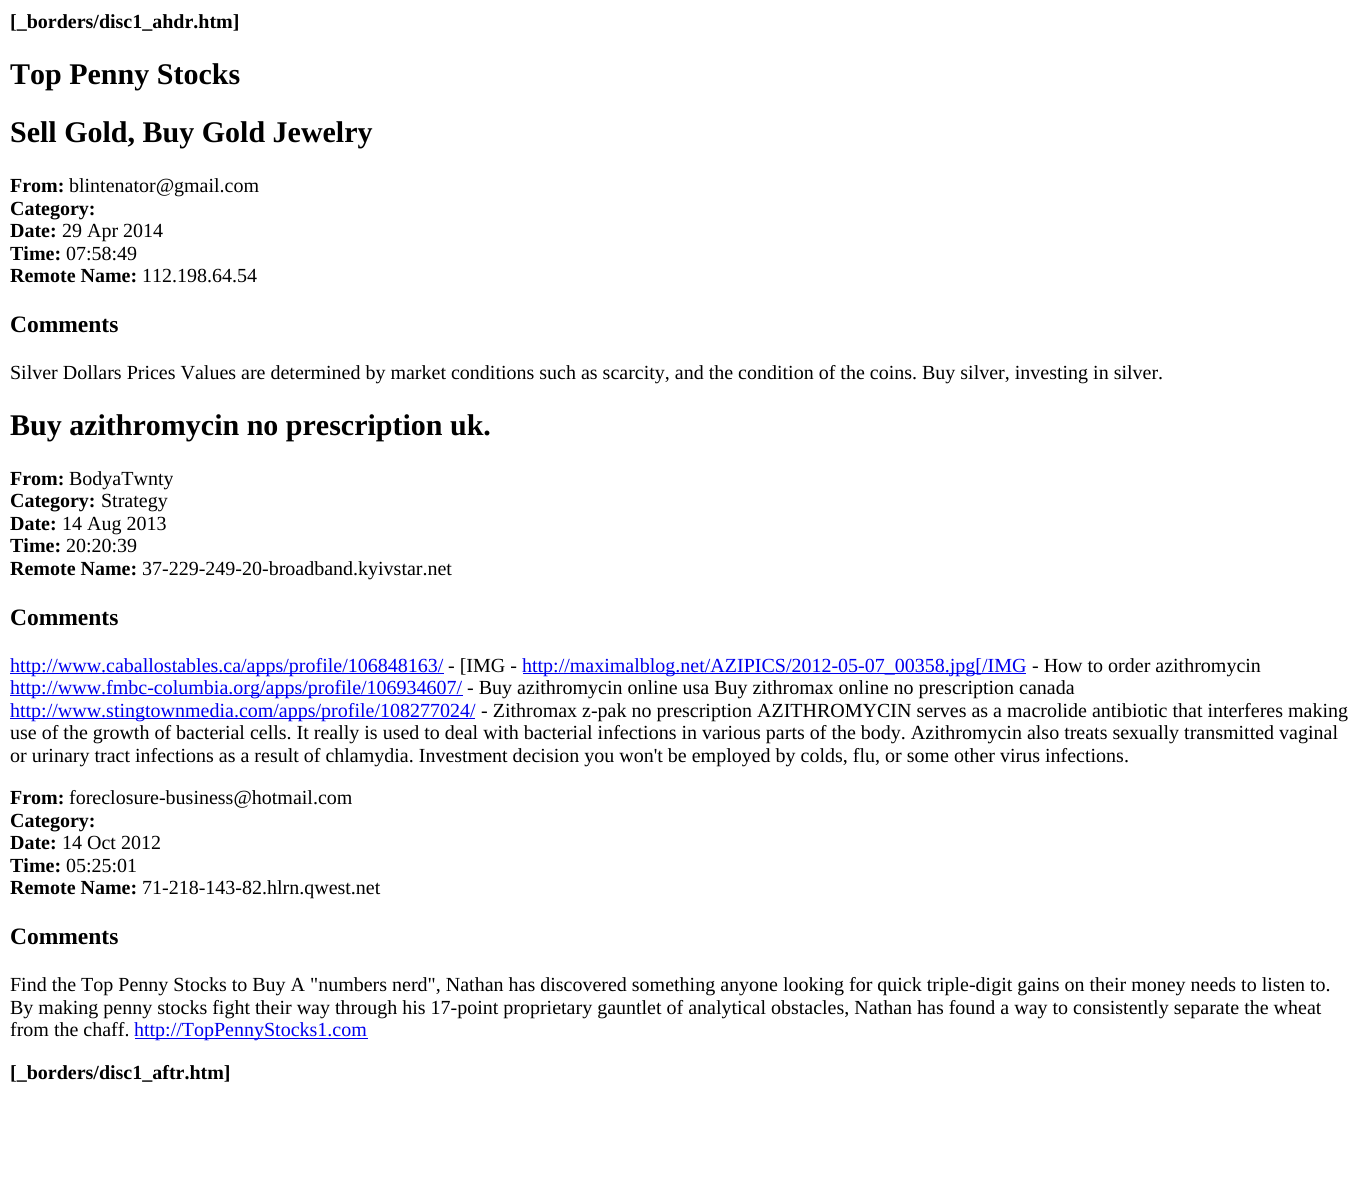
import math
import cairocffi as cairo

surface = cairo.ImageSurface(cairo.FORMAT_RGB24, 1365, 1179)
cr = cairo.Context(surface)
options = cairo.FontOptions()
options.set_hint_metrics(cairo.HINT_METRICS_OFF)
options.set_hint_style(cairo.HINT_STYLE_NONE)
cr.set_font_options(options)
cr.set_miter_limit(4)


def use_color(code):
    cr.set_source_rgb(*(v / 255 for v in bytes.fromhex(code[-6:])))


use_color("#ffffff")
cr.paint()
cr.select_font_face("Liberation Serif", cairo.FONT_SLANT_NORMAL, cairo.FONT_WEIGHT_BOLD)
cr.set_font_size(20)
use_color("#000000")
cr.move_to(10, 28)
cr.show_text("[_borders/disc1_ahdr.htm]")
cr.set_font_size(30)
cr.move_to(10, 84)
cr.show_text("Top Penny Stocks")
cr.move_to(10, 142)
cr.show_text("Sell Gold, Buy Gold Jewelry")
cr.set_font_size(20)
cr.move_to(10, 192)
cr.show_text("From:")
cr.select_font_face("Liberation Serif")
cr.move_to(69, 192)
cr.show_text("blintenator@gmail.com")
cr.select_font_face("Liberation Serif", cairo.FONT_SLANT_NORMAL, cairo.FONT_WEIGHT_BOLD)
cr.move_to(10, 215)
cr.show_text("Category:")
cr.move_to(10, 237)
cr.show_text("Date:")
cr.select_font_face("Liberation Serif")
cr.move_to(62, 237)
cr.show_text("29 Apr 2014")
cr.select_font_face("Liberation Serif", cairo.FONT_SLANT_NORMAL, cairo.FONT_WEIGHT_BOLD)
cr.move_to(10, 260)
cr.show_text("Time:")
cr.select_font_face("Liberation Serif")
cr.move_to(66, 260)
cr.show_text("07:58:49")
cr.select_font_face("Liberation Serif", cairo.FONT_SLANT_NORMAL, cairo.FONT_WEIGHT_BOLD)
cr.move_to(10, 282)
cr.show_text("Remote Name:")
cr.select_font_face("Liberation Serif")
cr.move_to(142, 282)
cr.show_text("112.198.64.54")
cr.select_font_face("Liberation Serif", cairo.FONT_SLANT_NORMAL, cairo.FONT_WEIGHT_BOLD)
cr.set_font_size(23.5)
cr.move_to(10, 332)
cr.show_text("Comments")
cr.select_font_face("Liberation Serif")
cr.set_font_size(20)
cr.move_to(10, 379)
cr.show_text("Silver Dollars Prices Values are determined by market conditions such as scarcity, and the condition of the coins. Buy silver, investing in silver.")
cr.select_font_face("Liberation Serif", cairo.FONT_SLANT_NORMAL, cairo.FONT_WEIGHT_BOLD)
cr.set_font_size(30)
cr.move_to(10, 435)
cr.show_text("Buy azithromycin no prescription uk.")
cr.set_font_size(20)
cr.move_to(10, 485)
cr.show_text("From:")
cr.select_font_face("Liberation Serif")
cr.move_to(69, 485)
cr.show_text("BodyaTwnty")
cr.select_font_face("Liberation Serif", cairo.FONT_SLANT_NORMAL, cairo.FONT_WEIGHT_BOLD)
cr.move_to(10, 507)
cr.show_text("Category:")
cr.select_font_face("Liberation Serif")
cr.move_to(101, 507)
cr.show_text("Strategy")
cr.select_font_face("Liberation Serif", cairo.FONT_SLANT_NORMAL, cairo.FONT_WEIGHT_BOLD)
cr.move_to(10, 530)
cr.show_text("Date:")
cr.select_font_face("Liberation Serif")
cr.move_to(62, 530)
cr.show_text("14 Aug 2013")
cr.select_font_face("Liberation Serif", cairo.FONT_SLANT_NORMAL, cairo.FONT_WEIGHT_BOLD)
cr.move_to(10, 552)
cr.show_text("Time:")
cr.select_font_face("Liberation Serif")
cr.move_to(66, 552)
cr.show_text("20:20:39")
cr.select_font_face("Liberation Serif", cairo.FONT_SLANT_NORMAL, cairo.FONT_WEIGHT_BOLD)
cr.move_to(10, 575)
cr.show_text("Remote Name:")
cr.select_font_face("Liberation Serif")
cr.move_to(142, 575)
cr.show_text("37-229-249-20-broadband.kyivstar.net")
cr.select_font_face("Liberation Serif", cairo.FONT_SLANT_NORMAL, cairo.FONT_WEIGHT_BOLD)
cr.set_font_size(23.5)
cr.move_to(10, 625)
cr.show_text("Comments")
use_color("#0000ee")
cr.rectangle(10, 673, 434, 1)
cr.fill()
cr.select_font_face("Liberation Serif")
cr.set_font_size(20)
cr.move_to(10, 672)
cr.show_text("http://www.caballostables.ca/apps/profile/106848163/")
use_color("#000000")
cr.move_to(448, 672)
cr.show_text("- [IMG -")
use_color("#0000ee")
cr.rectangle(523, 673, 503, 1)
cr.fill()
cr.move_to(522, 672)
cr.show_text("http://maximalblog.net/AZIPICS/2012-05-07_00358.jpg[/IMG")
use_color("#000000")
cr.move_to(1032, 672)
cr.show_text("- How to order azithromycin")
use_color("#0000ee")
cr.rectangle(10, 695, 453, 1)
cr.fill()
cr.move_to(10, 694)
cr.show_text("http://www.fmbc-columbia.org/apps/profile/106934607/")
use_color("#000000")
cr.move_to(467, 694)
cr.show_text("- Buy azithromycin online usa Buy zithromax online no prescription canada")
use_color("#0000ee")
cr.rectangle(10, 718, 465, 1)
cr.fill()
cr.move_to(10, 717)
cr.show_text("http://www.stingtownmedia.com/apps/profile/108277024/")
use_color("#000000")
cr.move_to(481, 717)
cr.show_text("- Zithromax z-pak no prescription AZITHROMYCIN serves as a macrolide antibiotic that interferes making")
cr.move_to(10, 739)
cr.show_text("use of the growth of bacterial cells. It really is used to deal with bacterial infections in various parts of the body. Azithromycin also treats sexually transmitted vaginal")
cr.move_to(10, 762)
cr.show_text("or urinary tract infections as a result of chlamydia. Investment decision you won't be employed by colds, flu, or some other virus infections.")
cr.select_font_face("Liberation Serif", cairo.FONT_SLANT_NORMAL, cairo.FONT_WEIGHT_BOLD)
cr.move_to(10, 804)
cr.show_text("From:")
cr.select_font_face("Liberation Serif")
cr.move_to(69, 804)
cr.show_text("foreclosure-business@hotmail.com")
cr.select_font_face("Liberation Serif", cairo.FONT_SLANT_NORMAL, cairo.FONT_WEIGHT_BOLD)
cr.move_to(10, 827)
cr.show_text("Category:")
cr.move_to(10, 849)
cr.show_text("Date:")
cr.select_font_face("Liberation Serif")
cr.move_to(62, 849)
cr.show_text("14 Oct 2012")
cr.select_font_face("Liberation Serif", cairo.FONT_SLANT_NORMAL, cairo.FONT_WEIGHT_BOLD)
cr.move_to(10, 872)
cr.show_text("Time:")
cr.select_font_face("Liberation Serif")
cr.move_to(66, 872)
cr.show_text("05:25:01")
cr.select_font_face("Liberation Serif", cairo.FONT_SLANT_NORMAL, cairo.FONT_WEIGHT_BOLD)
cr.move_to(10, 894)
cr.show_text("Remote Name:")
cr.select_font_face("Liberation Serif")
cr.move_to(142, 894)
cr.show_text("71-218-143-82.hlrn.qwest.net")
cr.select_font_face("Liberation Serif", cairo.FONT_SLANT_NORMAL, cairo.FONT_WEIGHT_BOLD)
cr.set_font_size(23.5)
cr.move_to(10, 944)
cr.show_text("Comments")
cr.select_font_face("Liberation Serif")
cr.set_font_size(20)
cr.move_to(10, 991)
cr.show_text("Find the Top Penny Stocks to Buy A \"numbers nerd\", Nathan has discovered something anyone looking for quick triple-digit gains on their money needs to listen to.")
cr.move_to(10, 1014)
cr.show_text("By making penny stocks fight their way through his 17-point proprietary gauntlet of analytical obstacles, Nathan has found a way to consistently separate the wheat")
cr.move_to(10, 1036)
cr.show_text("from the chaff.")
use_color("#0000ee")
cr.rectangle(135, 1038, 233, 1)
cr.fill()
cr.move_to(134, 1036)
cr.show_text("http://TopPennyStocks1.com")
cr.select_font_face("Liberation Serif", cairo.FONT_SLANT_NORMAL, cairo.FONT_WEIGHT_BOLD)
use_color("#000000")
cr.move_to(10, 1079)
cr.show_text("[_borders/disc1_aftr.htm]")
surface.write_to_png("result.png")
